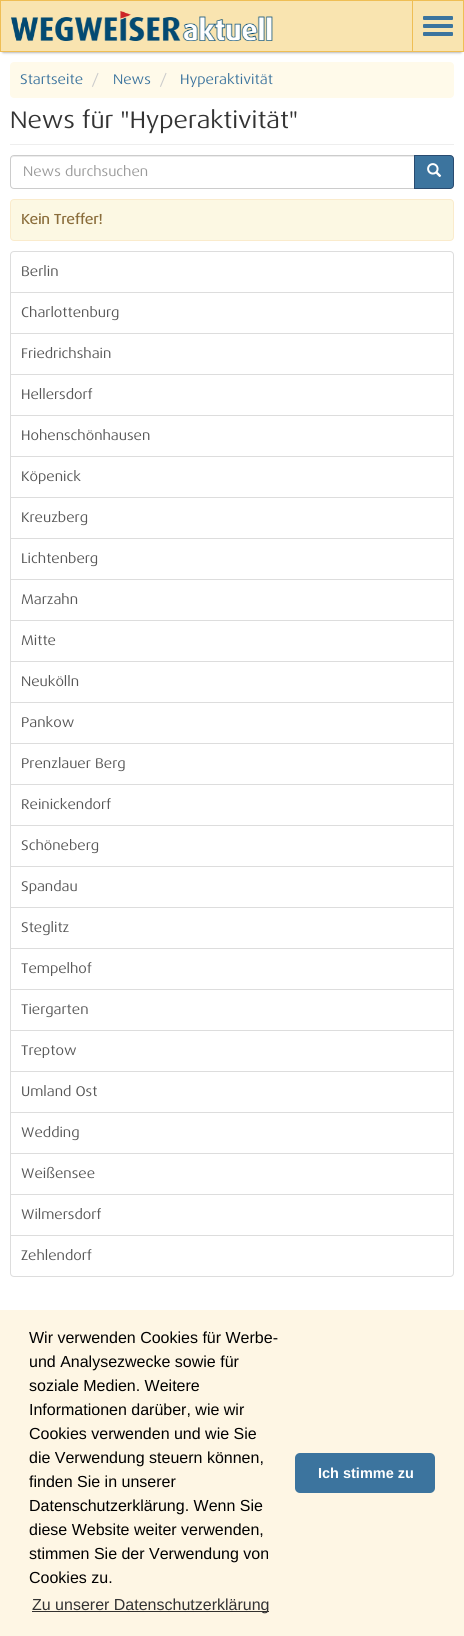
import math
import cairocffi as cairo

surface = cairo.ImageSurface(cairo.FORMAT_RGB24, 464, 1636)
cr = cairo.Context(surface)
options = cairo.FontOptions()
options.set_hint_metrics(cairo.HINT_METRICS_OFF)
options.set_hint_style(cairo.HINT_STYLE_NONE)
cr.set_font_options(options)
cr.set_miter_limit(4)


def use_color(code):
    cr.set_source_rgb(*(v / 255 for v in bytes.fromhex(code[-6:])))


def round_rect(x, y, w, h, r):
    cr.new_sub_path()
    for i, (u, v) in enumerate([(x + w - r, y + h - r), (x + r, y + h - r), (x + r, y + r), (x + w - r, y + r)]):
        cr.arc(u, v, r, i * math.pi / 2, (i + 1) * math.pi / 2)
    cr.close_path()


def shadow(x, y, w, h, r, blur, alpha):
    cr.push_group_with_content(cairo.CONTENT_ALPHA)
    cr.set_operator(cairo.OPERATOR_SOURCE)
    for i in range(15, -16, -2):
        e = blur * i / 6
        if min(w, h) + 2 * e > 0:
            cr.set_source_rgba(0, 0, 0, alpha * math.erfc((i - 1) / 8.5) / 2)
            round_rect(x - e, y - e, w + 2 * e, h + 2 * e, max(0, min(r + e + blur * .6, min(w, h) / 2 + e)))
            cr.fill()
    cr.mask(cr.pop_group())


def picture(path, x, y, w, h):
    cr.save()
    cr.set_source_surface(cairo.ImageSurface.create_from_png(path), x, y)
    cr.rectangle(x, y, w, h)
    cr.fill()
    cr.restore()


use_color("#ffffff")
cr.paint()
use_color("#000000")
shadow(3, 6, 458, 46, 0, 1.5, 0.5)
use_color("#f9e4b0")
cr.rectangle(0.5, 0.5, 463, 51)
cr.fill_preserve()
use_color("#efbe55")
cr.set_line_width(1)
cr.stroke()
picture("img1.png", 11, 11, 262, 30)
cr.rectangle(412, 1, 1, 50)
cr.fill()
use_color("#3c749e")
round_rect(423, 16, 30, 4, 1)
cr.fill()
round_rect(423, 24, 30, 4, 1)
cr.fill()
round_rect(423, 32, 30, 4, 1)
cr.fill()
use_color("#fffaea")
round_rect(10, 62, 444, 36, 4)
cr.fill()
cr.select_font_face("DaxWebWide")
cr.set_font_size(14)
use_color("#3c749e")
cr.move_to(20, 84)
cr.show_text("Startseite")
use_color("#cccccc")
cr.move_to(92, 84)
cr.show_text("/")
use_color("#3c749e")
cr.move_to(113, 84)
cr.show_text("News")
use_color("#cccccc")
cr.move_to(160, 84)
cr.show_text("/")
use_color("#3c749e")
cr.move_to(180, 84)
cr.show_text("Hyperaktivität")
use_color("#eeeeee")
cr.rectangle(10, 144, 444, 1)
cr.fill()
cr.set_font_size(24)
use_color("#333333")
cr.move_to(10, 128)
cr.show_text("News für \"Hyperaktivität\"")
use_color("#ececec")
cr.new_path()
cr.move_to(14, 157)
cr.line_to(414, 157)
cr.line_to(414, 156)
cr.line_to(14, 156)
cr.curve_to(12, 156, 11, 158, 11, 160)
cr.curve_to(11, 158, 12, 157, 14, 157)
cr.close_path()
cr.fill()
cr.new_path()
cr.move_to(14, 155.5)
cr.line_to(414.5, 155.5)
cr.line_to(414.5, 188.5)
cr.line_to(14, 188.5)
cr.curve_to(12, 188.5, 10.5, 187, 10.5, 185)
cr.line_to(10.5, 159)
cr.curve_to(10.5, 157, 12, 155.5, 14, 155.5)
cr.close_path()
use_color("#cccccc")
cr.stroke()
cr.set_font_size(14)
use_color("#999999")
cr.move_to(23, 176)
cr.show_text("News durchsuchen")
use_color("#3c749e")
cr.new_path()
cr.move_to(414.5, 155.5)
cr.line_to(450, 155.5)
cr.curve_to(452, 155.5, 453.5, 157, 453.5, 159)
cr.line_to(453.5, 185)
cr.curve_to(453.5, 187, 452, 188.5, 450, 188.5)
cr.line_to(414.5, 188.5)
cr.close_path()
cr.fill_preserve()
use_color("#294b70")
cr.stroke()
picture("img2.png", 427, 163, 15, 14)
use_color("#fcf8e3")
round_rect(10.5, 199.5, 443, 41, 3.5)
cr.fill_preserve()
use_color("#faebcc")
cr.stroke()
cr.select_font_face("DaxWebWide", cairo.FONT_SLANT_NORMAL, cairo.FONT_WEIGHT_BOLD)
use_color("#8a6d3b")
cr.move_to(21, 224)
cr.show_text("Kein Treffer!")
cr.new_path()
cr.move_to(14, 251.5)
cr.line_to(450, 251.5)
cr.curve_to(452, 251.5, 453.5, 253, 453.5, 255)
cr.line_to(453.5, 292.5)
cr.line_to(10.5, 292.5)
cr.line_to(10.5, 255)
cr.curve_to(10.5, 253, 12, 251.5, 14, 251.5)
cr.close_path()
use_color("#dddddd")
cr.stroke()
cr.select_font_face("DaxWebWide")
use_color("#555555")
cr.move_to(21, 276)
cr.show_text("Berlin")
cr.rectangle(10.5, 292.5, 443, 41)
use_color("#dddddd")
cr.stroke()
use_color("#555555")
cr.move_to(21, 317)
cr.show_text("Charlottenburg")
cr.rectangle(10.5, 333.5, 443, 41)
use_color("#dddddd")
cr.stroke()
use_color("#555555")
cr.move_to(21, 358)
cr.show_text("Friedrichshain")
cr.rectangle(10.5, 374.5, 443, 41)
use_color("#dddddd")
cr.stroke()
use_color("#555555")
cr.move_to(21, 399)
cr.show_text("Hellersdorf")
cr.rectangle(10.5, 415.5, 443, 41)
use_color("#dddddd")
cr.stroke()
use_color("#555555")
cr.move_to(21, 440)
cr.show_text("Hohenschönhausen")
cr.rectangle(10.5, 456.5, 443, 41)
use_color("#dddddd")
cr.stroke()
use_color("#555555")
cr.move_to(21, 481)
cr.show_text("Köpenick")
cr.rectangle(10.5, 497.5, 443, 41)
use_color("#dddddd")
cr.stroke()
use_color("#555555")
cr.move_to(21, 522)
cr.show_text("Kreuzberg")
cr.rectangle(10.5, 538.5, 443, 41)
use_color("#dddddd")
cr.stroke()
use_color("#555555")
cr.move_to(21, 563)
cr.show_text("Lichtenberg")
cr.rectangle(10.5, 579.5, 443, 41)
use_color("#dddddd")
cr.stroke()
use_color("#555555")
cr.move_to(21, 604)
cr.show_text("Marzahn")
cr.rectangle(10.5, 620.5, 443, 41)
use_color("#dddddd")
cr.stroke()
use_color("#555555")
cr.move_to(21, 645)
cr.show_text("Mitte")
cr.rectangle(10.5, 661.5, 443, 41)
use_color("#dddddd")
cr.stroke()
use_color("#555555")
cr.move_to(21, 686)
cr.show_text("Neukölln")
cr.rectangle(10.5, 702.5, 443, 41)
use_color("#dddddd")
cr.stroke()
use_color("#555555")
cr.move_to(21, 727)
cr.show_text("Pankow")
cr.rectangle(10.5, 743.5, 443, 41)
use_color("#dddddd")
cr.stroke()
use_color("#555555")
cr.move_to(21, 768)
cr.show_text("Prenzlauer Berg")
cr.rectangle(10.5, 784.5, 443, 41)
use_color("#dddddd")
cr.stroke()
use_color("#555555")
cr.move_to(21, 809)
cr.show_text("Reinickendorf")
cr.rectangle(10.5, 825.5, 443, 41)
use_color("#dddddd")
cr.stroke()
use_color("#555555")
cr.move_to(21, 850)
cr.show_text("Schöneberg")
cr.rectangle(10.5, 866.5, 443, 41)
use_color("#dddddd")
cr.stroke()
use_color("#555555")
cr.move_to(21, 891)
cr.show_text("Spandau")
cr.rectangle(10.5, 907.5, 443, 41)
use_color("#dddddd")
cr.stroke()
use_color("#555555")
cr.move_to(21, 932)
cr.show_text("Steglitz")
cr.rectangle(10.5, 948.5, 443, 41)
use_color("#dddddd")
cr.stroke()
use_color("#555555")
cr.move_to(21, 973)
cr.show_text("Tempelhof")
cr.rectangle(10.5, 989.5, 443, 41)
use_color("#dddddd")
cr.stroke()
use_color("#555555")
cr.move_to(21, 1014)
cr.show_text("Tiergarten")
cr.rectangle(10.5, 1030.5, 443, 41)
use_color("#dddddd")
cr.stroke()
use_color("#555555")
cr.move_to(21, 1055)
cr.show_text("Treptow")
cr.rectangle(10.5, 1071.5, 443, 41)
use_color("#dddddd")
cr.stroke()
use_color("#555555")
cr.move_to(21, 1096)
cr.show_text("Umland Ost")
cr.rectangle(10.5, 1112.5, 443, 41)
use_color("#dddddd")
cr.stroke()
use_color("#555555")
cr.move_to(21, 1137)
cr.show_text("Wedding")
cr.rectangle(10.5, 1153.5, 443, 41)
use_color("#dddddd")
cr.stroke()
use_color("#555555")
cr.move_to(21, 1178)
cr.show_text("Weißensee")
cr.rectangle(10.5, 1194.5, 443, 41)
use_color("#dddddd")
cr.stroke()
use_color("#555555")
cr.move_to(21, 1219)
cr.show_text("Wilmersdorf")
use_color("#ffffff")
cr.new_path()
cr.move_to(10.5, 1235.5)
cr.line_to(453.5, 1235.5)
cr.line_to(453.5, 1273)
cr.curve_to(453.5, 1275, 452, 1276.5, 450, 1276.5)
cr.line_to(14, 1276.5)
cr.curve_to(12, 1276.5, 10.5, 1275, 10.5, 1273)
cr.close_path()
cr.fill_preserve()
use_color("#dddddd")
cr.stroke()
use_color("#555555")
cr.move_to(21, 1260)
cr.show_text("Zehlendorf")
use_color("#fef6e4")
cr.rectangle(0, 1310, 464, 326)
cr.fill()
cr.select_font_face("Liberation Sans")
cr.set_font_size(16)
use_color("#000000")
cr.move_to(29, 1343)
cr.show_text("Wir verwenden Cookies für Werbe-")
cr.move_to(29, 1367)
cr.show_text("und Analysezwecke sowie für")
cr.move_to(29, 1391)
cr.show_text("soziale Medien. Weitere")
cr.move_to(29, 1415)
cr.show_text("Informationen darüber, wie wir")
cr.move_to(29, 1439)
cr.show_text("Cookies verwenden und wie Sie")
cr.move_to(29, 1463)
cr.show_text("die Verwendung steuern können,")
cr.move_to(29, 1487)
cr.show_text("finden Sie in unserer")
cr.move_to(29, 1511)
cr.show_text("Datenschutzerklärung. Wenn Sie")
cr.move_to(29, 1535)
cr.show_text("diese Website weiter verwenden,")
cr.move_to(29, 1559)
cr.show_text("stimmen Sie der Verwendung von")
cr.move_to(29, 1583)
cr.show_text("Cookies zu.")
use_color("#33312e")
cr.rectangle(32, 1611, 237, 1)
cr.fill()
use_color("#333333")
cr.move_to(32, 1610)
cr.show_text("Zu unserer Datenschutzerklärung")
use_color("#3c749e")
round_rect(295, 1453, 140, 40, 5)
cr.fill()
cr.select_font_face("Liberation Sans", cairo.FONT_SLANT_NORMAL, cairo.FONT_WEIGHT_BOLD)
cr.set_font_size(14.5)
use_color("#ffffff")
cr.move_to(318, 1478)
cr.show_text("Ich stimme zu")
surface.write_to_png("result.png")
